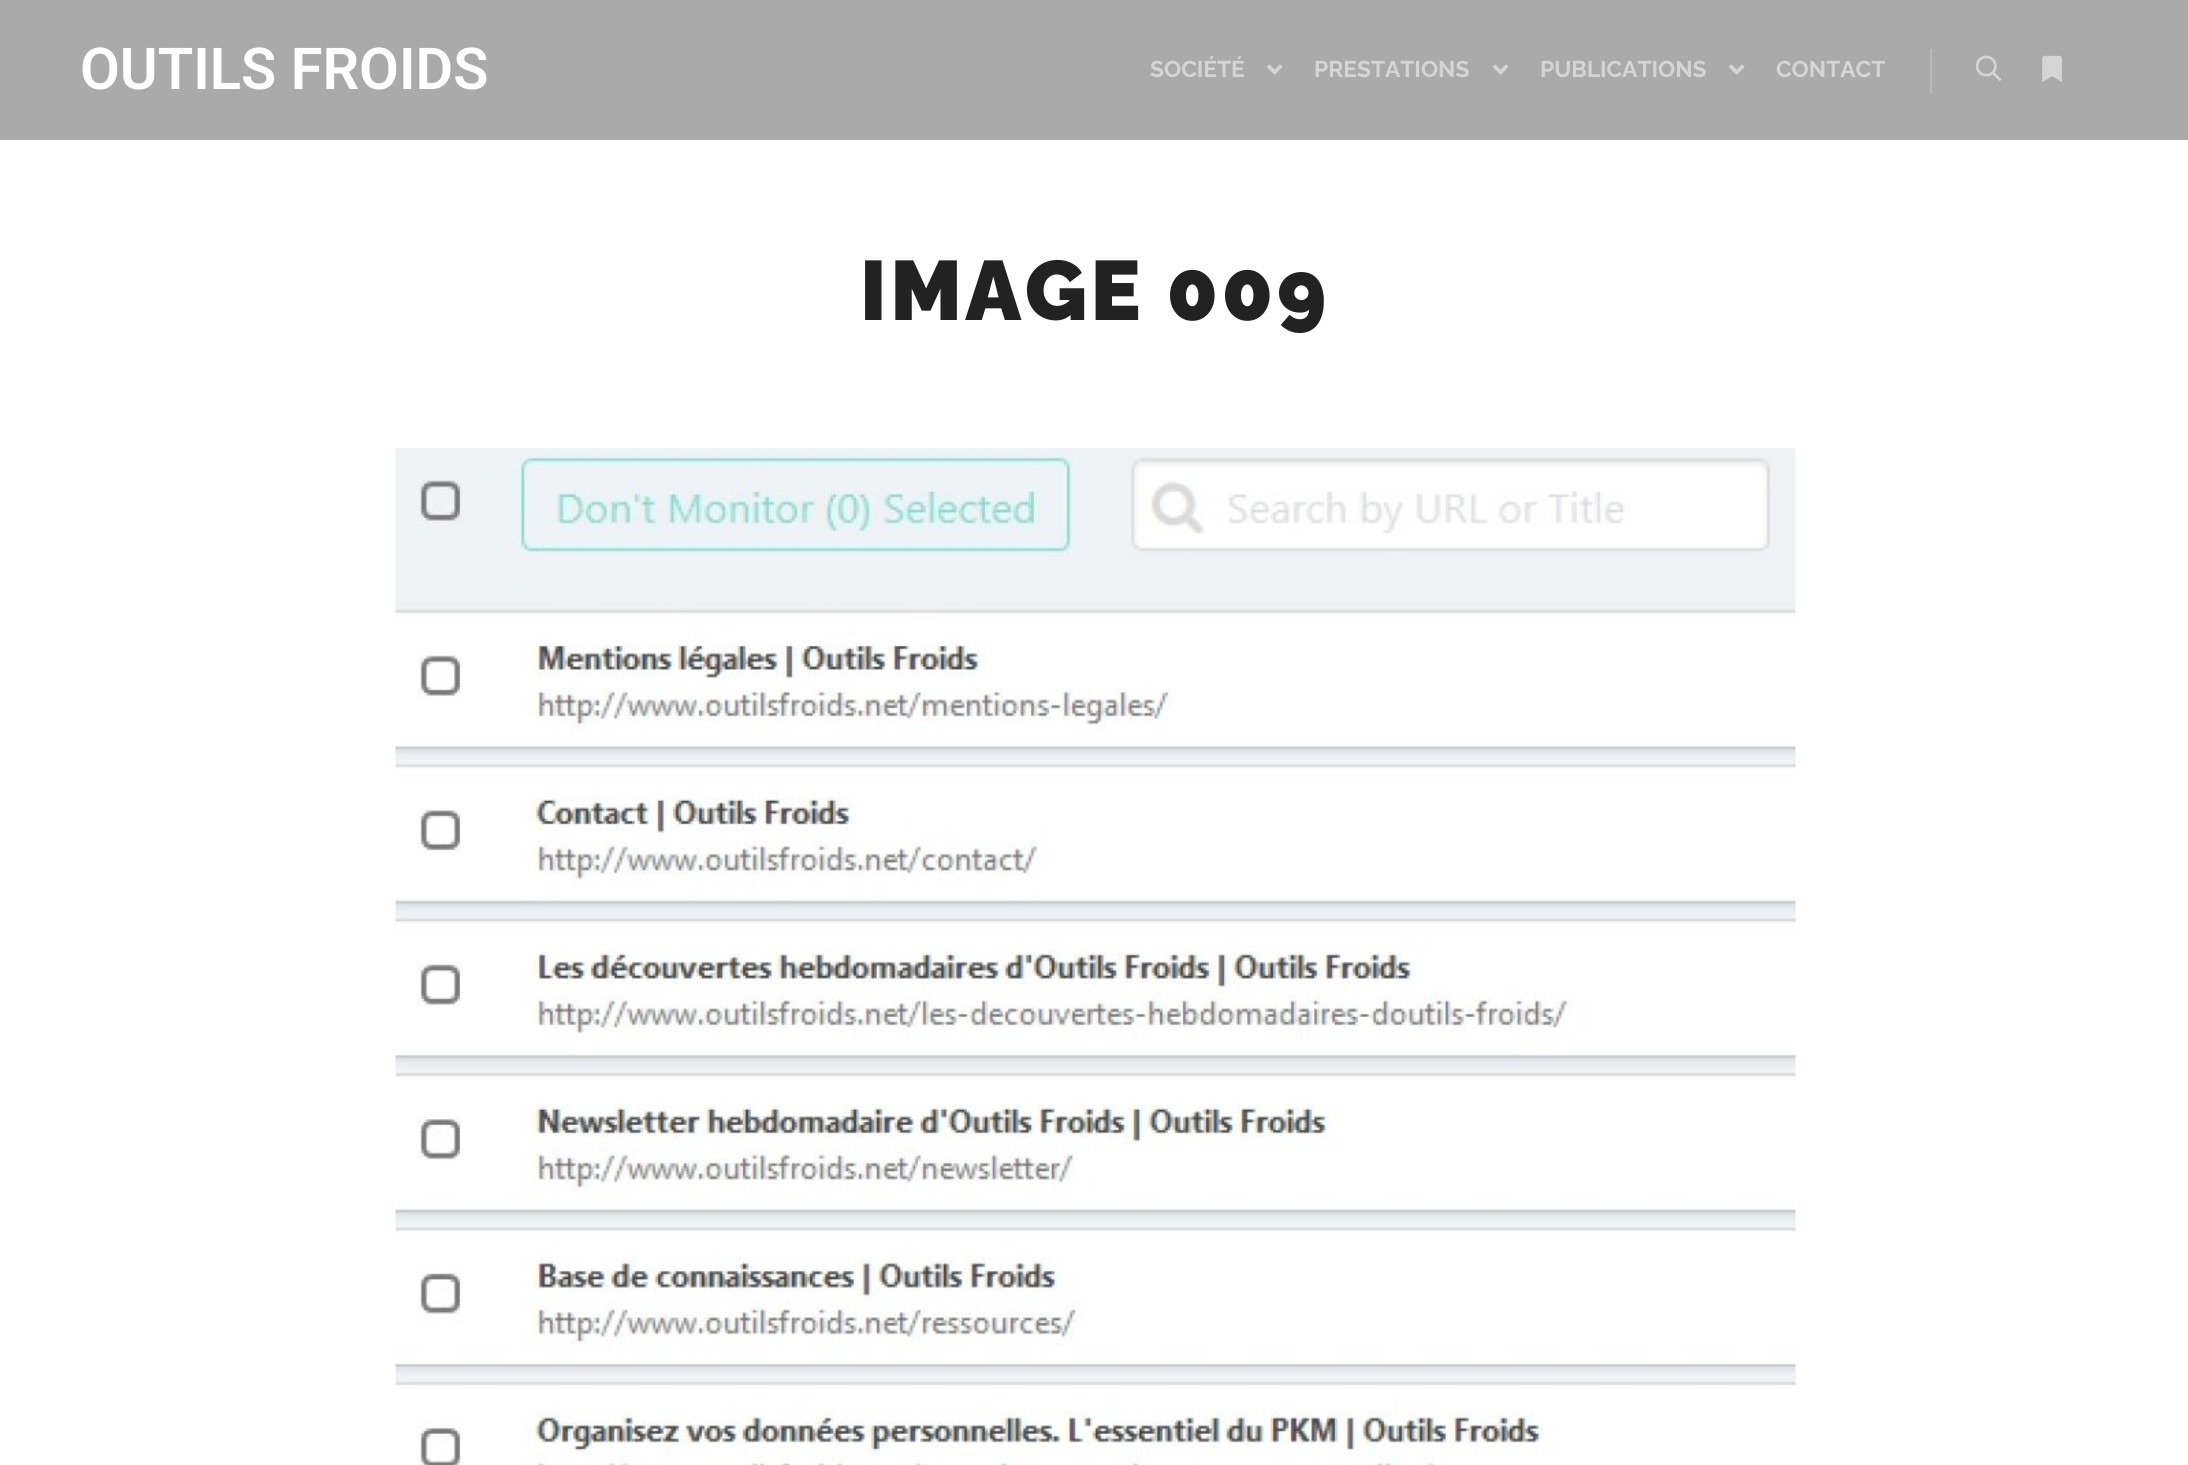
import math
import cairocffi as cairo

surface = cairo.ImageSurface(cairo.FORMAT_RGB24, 2188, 1465)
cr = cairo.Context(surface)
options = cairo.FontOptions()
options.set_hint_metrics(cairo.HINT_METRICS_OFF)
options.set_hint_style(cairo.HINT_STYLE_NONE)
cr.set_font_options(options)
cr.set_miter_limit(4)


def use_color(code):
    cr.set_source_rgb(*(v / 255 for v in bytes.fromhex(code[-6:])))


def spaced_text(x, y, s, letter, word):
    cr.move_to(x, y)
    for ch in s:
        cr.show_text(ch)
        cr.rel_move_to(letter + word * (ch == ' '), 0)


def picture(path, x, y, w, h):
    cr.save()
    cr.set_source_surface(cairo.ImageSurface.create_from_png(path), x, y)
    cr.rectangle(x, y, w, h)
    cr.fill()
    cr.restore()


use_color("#ffffff")
cr.paint()
use_color("#aaaaaa")
cr.rectangle(0, 0, 2188, 140)
cr.fill()
cr.select_font_face("Roboto SemiBold")
cr.set_font_size(57.75)
use_color("#ffffff")
cr.move_to(80, 89)
cr.show_text("OUTILS FROIDS")
cr.select_font_face("Raleway", cairo.FONT_SLANT_NORMAL, cairo.FONT_WEIGHT_BOLD)
cr.set_font_size(22.75)
use_color("#d5d5d5")
cr.move_to(1150, 77)
cr.show_text("SOCIÉTÉ")
picture("img1.png", 1267, 64, 16, 11)
cr.move_to(1314, 77)
cr.show_text("PRESTATIONS")
picture("img2.png", 1492, 64, 16, 11)
cr.move_to(1540, 77)
cr.show_text("PUBLICATIONS")
picture("img1.png", 1729, 64, 16, 11)
cr.move_to(1776, 77)
cr.show_text("CONTACT")
use_color("#bbbbbb")
cr.rectangle(1930, 49, 2, 44)
cr.fill()
picture("img3.png", 1975, 55, 27, 27)
picture("img4.png", 2042, 55, 20, 27)
cr.select_font_face("Raleway Black")
cr.set_font_size(84)
use_color("#222222")
spaced_text(860, 320, "IMAGE 009", 3.5, 0)
picture("img5.png", 395, 448, 1401, 1017)
surface.write_to_png("result.png")
